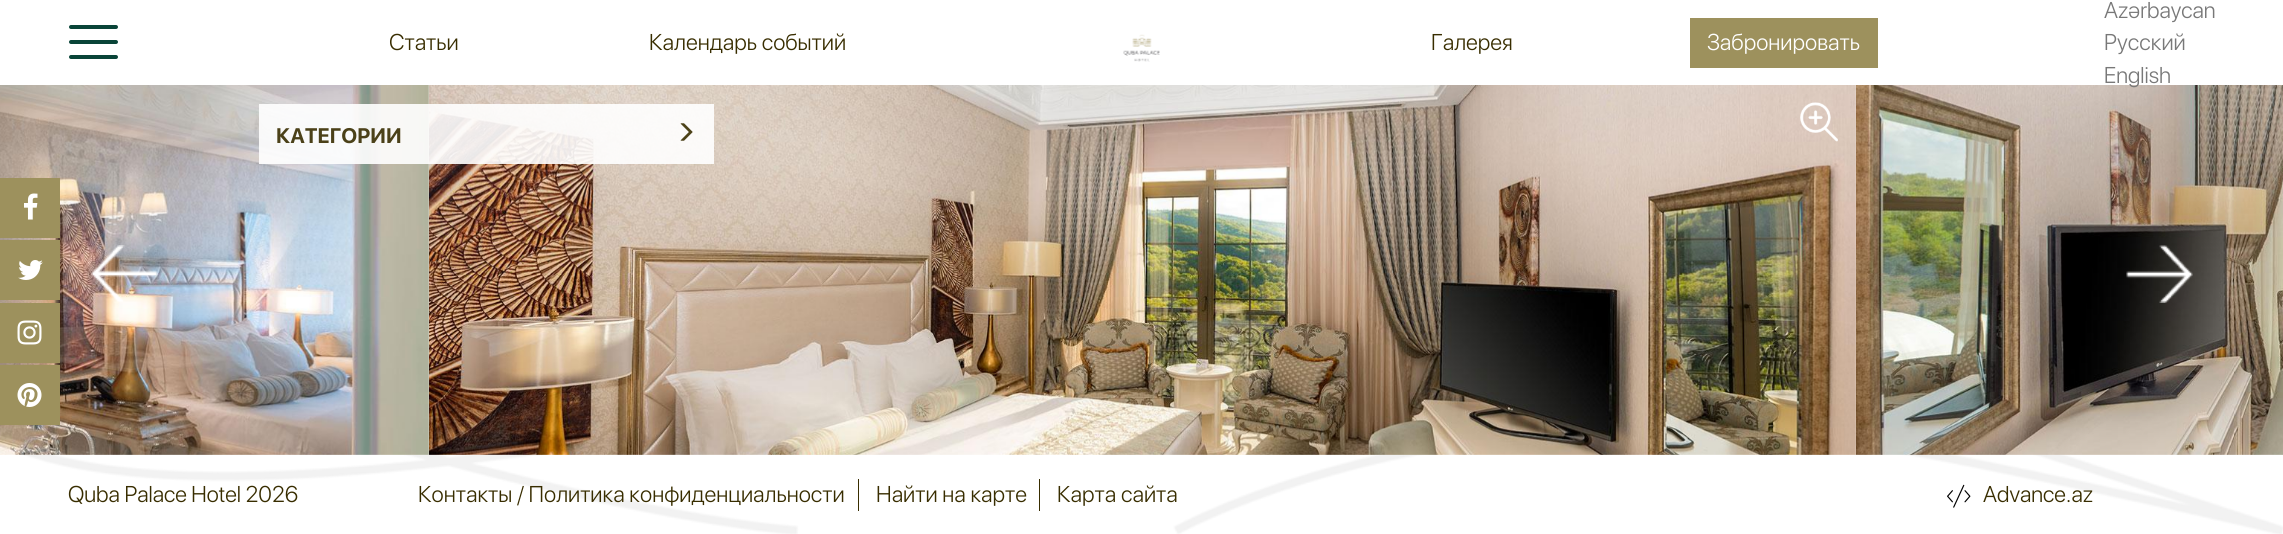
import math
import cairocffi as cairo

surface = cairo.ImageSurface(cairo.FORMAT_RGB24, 2283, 534)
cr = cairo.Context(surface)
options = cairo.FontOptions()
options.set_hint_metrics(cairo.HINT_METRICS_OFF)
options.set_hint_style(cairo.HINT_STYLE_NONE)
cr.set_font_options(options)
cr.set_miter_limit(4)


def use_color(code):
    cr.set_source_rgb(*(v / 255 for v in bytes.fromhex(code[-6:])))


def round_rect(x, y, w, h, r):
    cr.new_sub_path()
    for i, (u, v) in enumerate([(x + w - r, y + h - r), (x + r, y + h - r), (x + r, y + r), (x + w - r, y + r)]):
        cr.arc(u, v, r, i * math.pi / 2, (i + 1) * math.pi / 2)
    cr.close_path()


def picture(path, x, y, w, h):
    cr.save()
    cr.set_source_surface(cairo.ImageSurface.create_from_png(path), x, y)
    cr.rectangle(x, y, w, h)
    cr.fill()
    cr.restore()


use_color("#ffffff")
cr.paint()
picture("img1.png", 24, 386, 2259, 148)
use_color("#094438")
round_rect(69, 25, 49, 4, 2)
cr.fill()
round_rect(69, 40, 49, 4, 2)
cr.fill()
round_rect(69, 55, 49, 4, 2)
cr.fill()
cr.select_font_face("SF Pro Display Light")
cr.set_font_size(22.75)
use_color("#382d00")
cr.move_to(389, 50)
cr.show_text("Статьи")
cr.move_to(649, 50)
cr.show_text("Календарь событий")
picture("img2.png", 1123, 34, 37, 28)
cr.move_to(1431, 50)
cr.show_text("Галерея")
use_color("#9d915d")
cr.rectangle(1690, 18, 188, 50)
cr.fill()
use_color("#ffffff")
cr.move_to(1707, 50)
cr.show_text("Забронировать")
use_color("#787878")
cr.move_to(2104, 18)
cr.show_text("Azərbaycan")
cr.move_to(2104, 50)
cr.show_text("Русский")
picture("img6.png", 1856, 85, 427, 370)
cr.move_to(2104, 83)
cr.show_text("English")
use_color("#ffffff")
cr.rectangle(24, 386, 405, 69)
cr.fill()
picture("img3.png", 0, 85, 429, 370)
picture("img4.png", 429, 85, 1427, 370)
picture("img5.png", 1800, 102, 38, 40)
picture("img7.png", 91, 245, 67, 57)
picture("img8.png", 2126, 245, 67, 58)
cr.set_source_rgba(1, 1, 1, 0.9)
cr.rectangle(259, 104, 455, 60)
cr.fill()
cr.select_font_face("SF Pro Display", cairo.FONT_SLANT_NORMAL, cairo.FONT_WEIGHT_BOLD)
cr.set_font_size(21)
use_color("#4b4119")
cr.move_to(276, 143)
cr.show_text("КАТЕГОРИИ")
picture("img9.png", 680, 123, 13, 18)
use_color("#9d915d")
cr.rectangle(0, 178, 60, 60)
cr.fill()
picture("img10.png", 24, 193, 14, 27)
cr.rectangle(0, 240, 60, 60)
cr.fill()
picture("img11.png", 18, 260, 25, 20)
cr.rectangle(0, 303, 60, 60)
cr.fill()
picture("img12.png", 17, 320, 25, 25)
cr.rectangle(0, 365, 60, 60)
cr.fill()
picture("img13.png", 17, 383, 25, 24)
cr.select_font_face("SF Pro Display Light")
cr.set_font_size(22.75)
use_color("#382d00")
cr.move_to(68, 502)
cr.show_text("Quba Palace Hotel 2026")
cr.rectangle(858, 479, 1, 32)
cr.fill()
cr.move_to(418, 502)
cr.show_text("Контакты / Политика конфиденциальности")
cr.rectangle(1039, 479, 1, 32)
cr.fill()
cr.move_to(876, 502)
cr.show_text("Найти на карте")
cr.move_to(1057, 502)
cr.show_text("Карта сайта")
picture("img14.png", 1947, 484, 24, 24)
cr.move_to(1983, 502)
cr.show_text("Advance.az")
surface.write_to_png("result.png")
